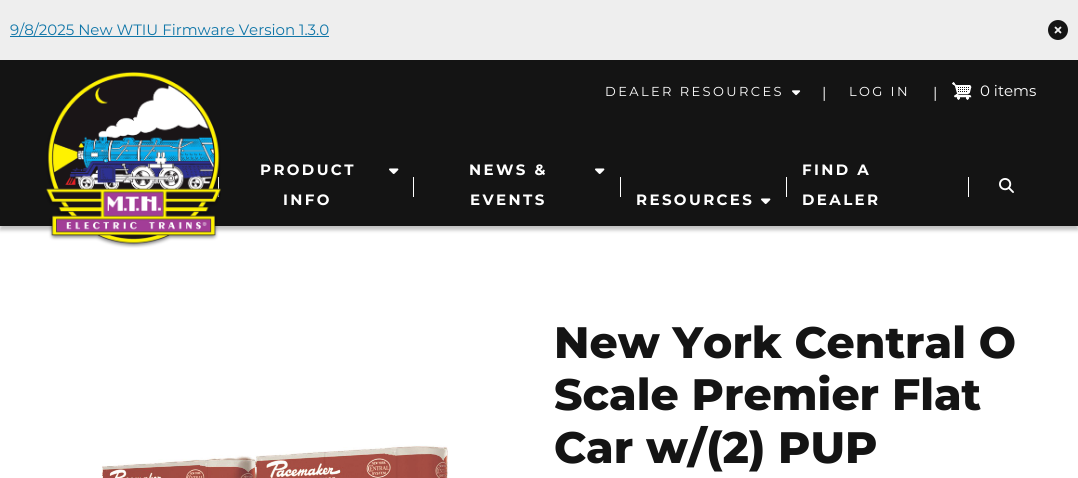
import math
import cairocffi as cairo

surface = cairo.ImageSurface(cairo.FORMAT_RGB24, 1078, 478)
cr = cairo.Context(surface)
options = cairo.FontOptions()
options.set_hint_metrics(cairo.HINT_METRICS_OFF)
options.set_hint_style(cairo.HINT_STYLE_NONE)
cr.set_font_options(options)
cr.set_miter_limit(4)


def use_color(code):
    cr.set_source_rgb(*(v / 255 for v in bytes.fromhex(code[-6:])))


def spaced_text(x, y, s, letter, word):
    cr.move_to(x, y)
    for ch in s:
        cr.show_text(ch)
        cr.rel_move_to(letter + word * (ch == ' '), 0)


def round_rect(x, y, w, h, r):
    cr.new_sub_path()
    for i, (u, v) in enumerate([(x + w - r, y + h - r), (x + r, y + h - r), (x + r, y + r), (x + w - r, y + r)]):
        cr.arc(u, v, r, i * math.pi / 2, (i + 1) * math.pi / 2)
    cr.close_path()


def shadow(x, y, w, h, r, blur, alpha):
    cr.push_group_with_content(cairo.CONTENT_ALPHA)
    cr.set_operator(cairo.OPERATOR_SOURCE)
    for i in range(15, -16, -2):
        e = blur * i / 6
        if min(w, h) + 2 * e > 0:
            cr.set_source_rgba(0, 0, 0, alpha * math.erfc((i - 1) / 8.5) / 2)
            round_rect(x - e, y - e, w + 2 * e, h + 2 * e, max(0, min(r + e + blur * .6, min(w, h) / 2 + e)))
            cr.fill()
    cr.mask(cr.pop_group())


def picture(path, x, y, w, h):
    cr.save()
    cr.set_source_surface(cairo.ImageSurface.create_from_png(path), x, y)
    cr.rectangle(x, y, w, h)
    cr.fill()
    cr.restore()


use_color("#ffffff")
cr.paint()
use_color("#eeeeee")
cr.rectangle(0, 0, 1078, 60)
cr.fill()
use_color("#1076a8")
cr.rectangle(10, 36, 319, 1)
cr.fill()
cr.select_font_face("Montserrat")
cr.set_font_size(15)
cr.move_to(10, 35)
cr.show_text("9/8/2025 New WTIU Firmware Version 1.3.0")
picture("img1.png", 1048, 20, 20, 20)
use_color("#000000")
shadow(0, 64, 1078, 166, 0, 2, 0.25)
use_color("#141414")
cr.rectangle(0, 60, 1078, 166)
cr.fill()
use_color("#ffffff")
cr.rectangle(218, 177, 1, 20)
cr.fill()
picture("img2.png", 46, 72, 175, 176)
cr.set_font_size(13)
spaced_text(605, 96, "DEALER RESOURCES", 2.4, 0)
picture("img3.png", 792, 90, 9, 6)
cr.set_font_size(15)
cr.move_to(822, 98)
cr.show_text("|")
cr.set_font_size(13)
spaced_text(849, 96, "LOG IN", 2.4, 0)
cr.set_font_size(15)
cr.move_to(933, 98)
cr.show_text("|")
picture("img4.png", 952, 82, 20, 18)
cr.move_to(980, 96)
cr.show_text("0 items")
cr.select_font_face("Montserrat", cairo.FONT_SLANT_NORMAL, cairo.FONT_WEIGHT_BOLD)
spaced_text(260, 175, "PRODUCT", 2.4, 0)
picture("img5.png", 389, 168, 10, 6)
spaced_text(283, 205, "INFO", 2.4, 0)
cr.rectangle(413, 177, 1, 20)
cr.fill()
spaced_text(469, 175, "NEWS &", 2.4, 0)
picture("img5.png", 595, 168, 10, 6)
spaced_text(470, 205, "EVENTS", 2.4, 0)
cr.rectangle(786, 177, 1, 20)
cr.fill()
spaced_text(802, 175, "FIND A", 2.4, 0)
spaced_text(802, 205, "DEALER", 2.4, 0)
cr.rectangle(968, 177, 1, 20)
cr.fill()
picture("img6.png", 999, 178, 15, 15)
cr.rectangle(620, 177, 1, 20)
cr.fill()
spaced_text(636, 205, "RESOURCES", 2.4, 0)
picture("img5.png", 761, 198, 10, 6)
picture("img7.png", 102, 445, 346, 33)
cr.select_font_face("Montserrat ExtraBold")
cr.set_font_size(44)
use_color("#141414")
cr.move_to(554, 358)
cr.show_text("New York Central O")
cr.move_to(554, 410)
cr.show_text("Scale Premier Flat")
cr.move_to(554, 463)
cr.show_text("Car w/(2) PUP")
surface.write_to_png("result.png")
